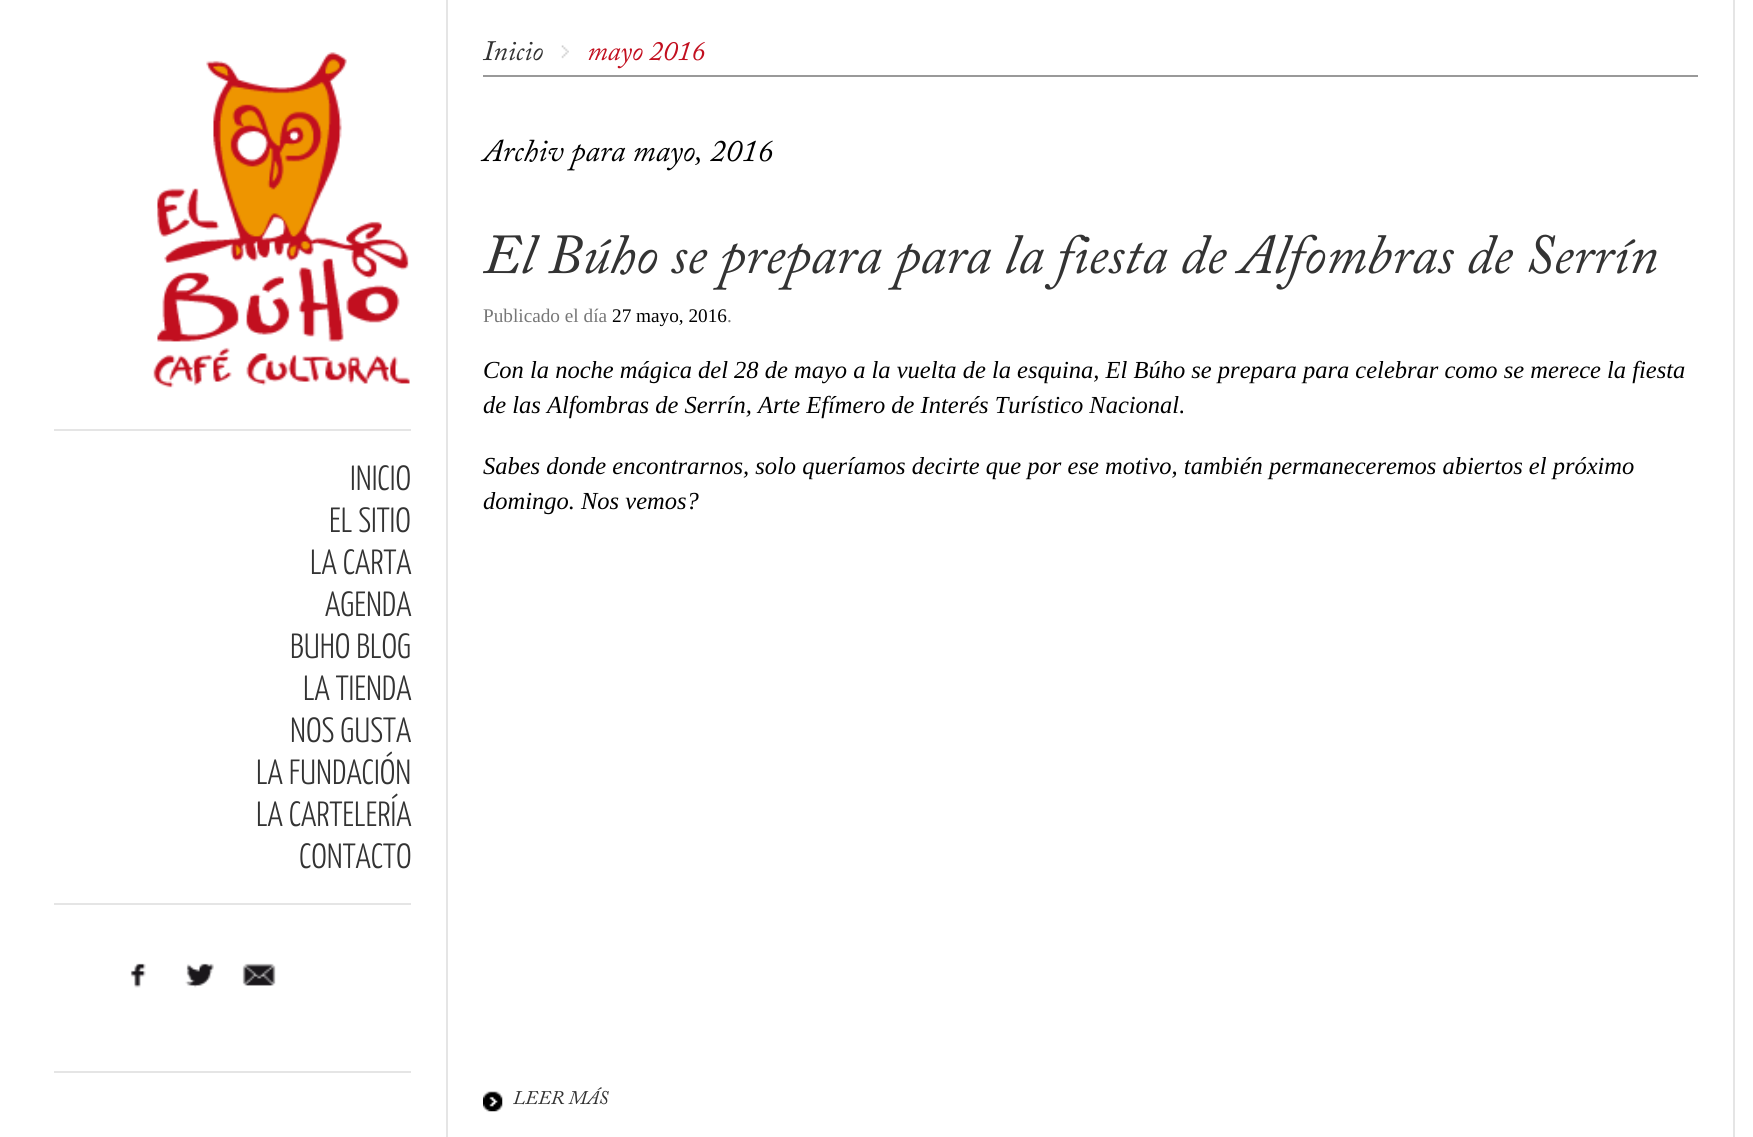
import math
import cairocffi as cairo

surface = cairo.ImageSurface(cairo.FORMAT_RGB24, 1753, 1137)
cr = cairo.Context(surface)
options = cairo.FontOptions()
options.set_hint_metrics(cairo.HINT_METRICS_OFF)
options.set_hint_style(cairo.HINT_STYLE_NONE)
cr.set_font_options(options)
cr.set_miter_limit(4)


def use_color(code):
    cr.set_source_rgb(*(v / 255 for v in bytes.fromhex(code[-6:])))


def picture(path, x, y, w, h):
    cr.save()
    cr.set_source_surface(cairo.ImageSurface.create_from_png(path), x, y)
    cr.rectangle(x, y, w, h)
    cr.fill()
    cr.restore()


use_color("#ffffff")
cr.paint()
use_color("#e5e5e5")
cr.rectangle(446, 0, 2, 1137)
cr.fill()
cr.rectangle(54, 429, 357, 2)
cr.fill()
picture("img1.png", 153, 52, 257, 336)
cr.rectangle(54, 903, 357, 2)
cr.fill()
cr.select_font_face("Yanone Kaffeesatz Light")
cr.set_font_size(35)
use_color("#333333")
cr.move_to(350, 490)
cr.show_text("INICIO")
cr.move_to(329, 532)
cr.show_text("EL SITIO")
cr.move_to(310, 574)
cr.show_text("LA CARTA")
cr.move_to(325, 616)
cr.show_text("AGENDA")
cr.move_to(290, 658)
cr.show_text("BUHO BLOG")
cr.move_to(303, 700)
cr.show_text("LA TIENDA")
cr.move_to(290, 742)
cr.show_text("NOS GUSTA")
cr.move_to(256, 784)
cr.show_text("LA FUNDACIÓN")
cr.move_to(256, 826)
cr.show_text("LA CARTELERÍA")
cr.move_to(299, 868)
cr.show_text("CONTACTO")
picture("img2.png", 130, 963, 16, 25)
picture("img3.png", 185, 963, 29, 25)
picture("img4.png", 242, 963, 34, 23)
use_color("#e5e5e5")
cr.rectangle(54, 1071, 357, 2)
cr.fill()
cr.rectangle(1733, 0, 2, 1137)
cr.fill()
use_color("#999999")
cr.rectangle(483, 75, 1215, 2)
cr.fill()
picture("img5.png", 561, 45, 8, 14)
cr.select_font_face("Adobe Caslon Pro", cairo.FONT_SLANT_ITALIC)
cr.set_font_size(28)
use_color("#333333")
cr.move_to(483, 60)
cr.show_text("Inicio")
use_color("#c20f1f")
cr.move_to(587, 60)
cr.show_text("mayo 2016")
cr.set_font_size(31.5)
use_color("#000000")
cr.move_to(483, 161)
cr.show_text("Archiv para mayo, 2016")
cr.set_font_size(56)
use_color("#333333")
cr.move_to(483, 273)
cr.show_text("El Búho se prepara para la fiesta de Alfombras de Serrín")
cr.select_font_face("Liberation Serif")
cr.set_font_size(19.25)
use_color("#777777")
cr.move_to(483, 322)
cr.show_text("Publicado el día")
use_color("#000000")
cr.move_to(612, 322)
cr.show_text("27 mayo, 2016")
use_color("#777777")
cr.move_to(727, 322)
cr.show_text(".")
cr.select_font_face("Liberation Serif", cairo.FONT_SLANT_ITALIC)
cr.set_font_size(24.5)
use_color("#000000")
cr.move_to(483, 378)
cr.show_text("Con la noche mágica del 28 de mayo a la vuelta de la esquina, El Búho se prepara para celebrar como se merece la fiesta")
cr.move_to(483, 413)
cr.show_text("de las Alfombras de Serrín, Arte Efímero de Interés Turístico Nacional.")
cr.move_to(483, 474)
cr.show_text("Sabes donde encontrarnos, solo queríamos decirte que por ese motivo, también permaneceremos abiertos el próximo")
cr.move_to(483, 509)
cr.show_text("domingo. Nos vemos?")
picture("img6.png", 483, 1091, 20, 21)
cr.select_font_face("Adobe Caslon Pro", cairo.FONT_SLANT_ITALIC)
cr.set_font_size(19.25)
use_color("#333333")
cr.move_to(513, 1104)
cr.show_text("LEER MÁS")
surface.write_to_png("result.png")
